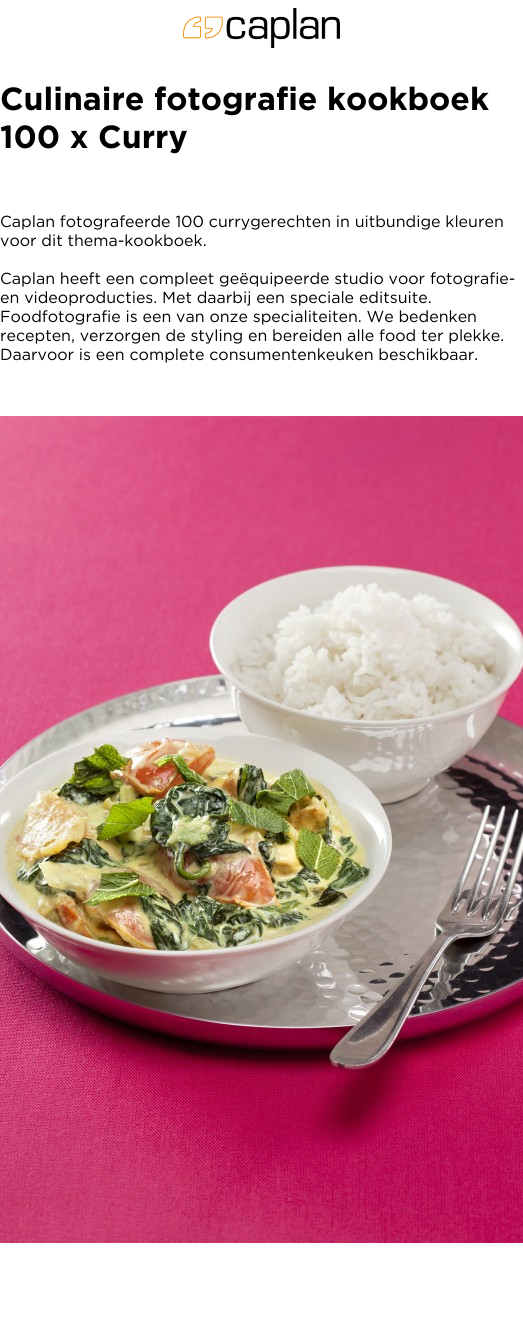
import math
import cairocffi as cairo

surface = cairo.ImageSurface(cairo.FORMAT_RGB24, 523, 1329)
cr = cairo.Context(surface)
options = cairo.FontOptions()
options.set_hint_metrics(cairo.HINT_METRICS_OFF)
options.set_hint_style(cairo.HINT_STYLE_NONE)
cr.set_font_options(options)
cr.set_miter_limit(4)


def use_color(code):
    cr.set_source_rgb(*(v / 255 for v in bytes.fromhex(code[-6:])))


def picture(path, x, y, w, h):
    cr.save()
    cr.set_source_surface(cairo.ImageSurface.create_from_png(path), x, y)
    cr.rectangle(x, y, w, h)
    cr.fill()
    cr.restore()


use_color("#ffffff")
cr.paint()
picture("img1.png", 183, 8, 157, 40)
cr.select_font_face("Gotham", cairo.FONT_SLANT_NORMAL, cairo.FONT_WEIGHT_BOLD)
cr.set_font_size(32)
use_color("#000000")
cr.move_to(0, 110)
cr.show_text("Culinaire fotografie kookboek")
cr.move_to(0, 148)
cr.show_text("100 x Curry")
cr.select_font_face("Gotham")
cr.set_font_size(16)
cr.move_to(0, 227)
cr.show_text("Caplan fotografeerde 100 currygerechten in uitbundige kleuren")
cr.move_to(0, 246)
cr.show_text("voor dit thema-kookboek.")
cr.move_to(0, 284)
cr.show_text("Caplan heeft een compleet geëquipeerde studio voor fotografie-")
cr.move_to(0, 303)
cr.show_text("en videoproducties. Met daarbij een speciale editsuite.")
cr.move_to(0, 322)
cr.show_text("Foodfotografie is een van onze specialiteiten. We bedenken")
cr.move_to(0, 341)
cr.show_text("recepten, verzorgen de styling en bereiden alle food ter plekke.")
cr.move_to(0, 360)
cr.show_text("Daarvoor is een complete consumentenkeuken beschikbaar.")
picture("img2.png", 0, 416, 523, 827)
surface.write_to_png("result.png")
